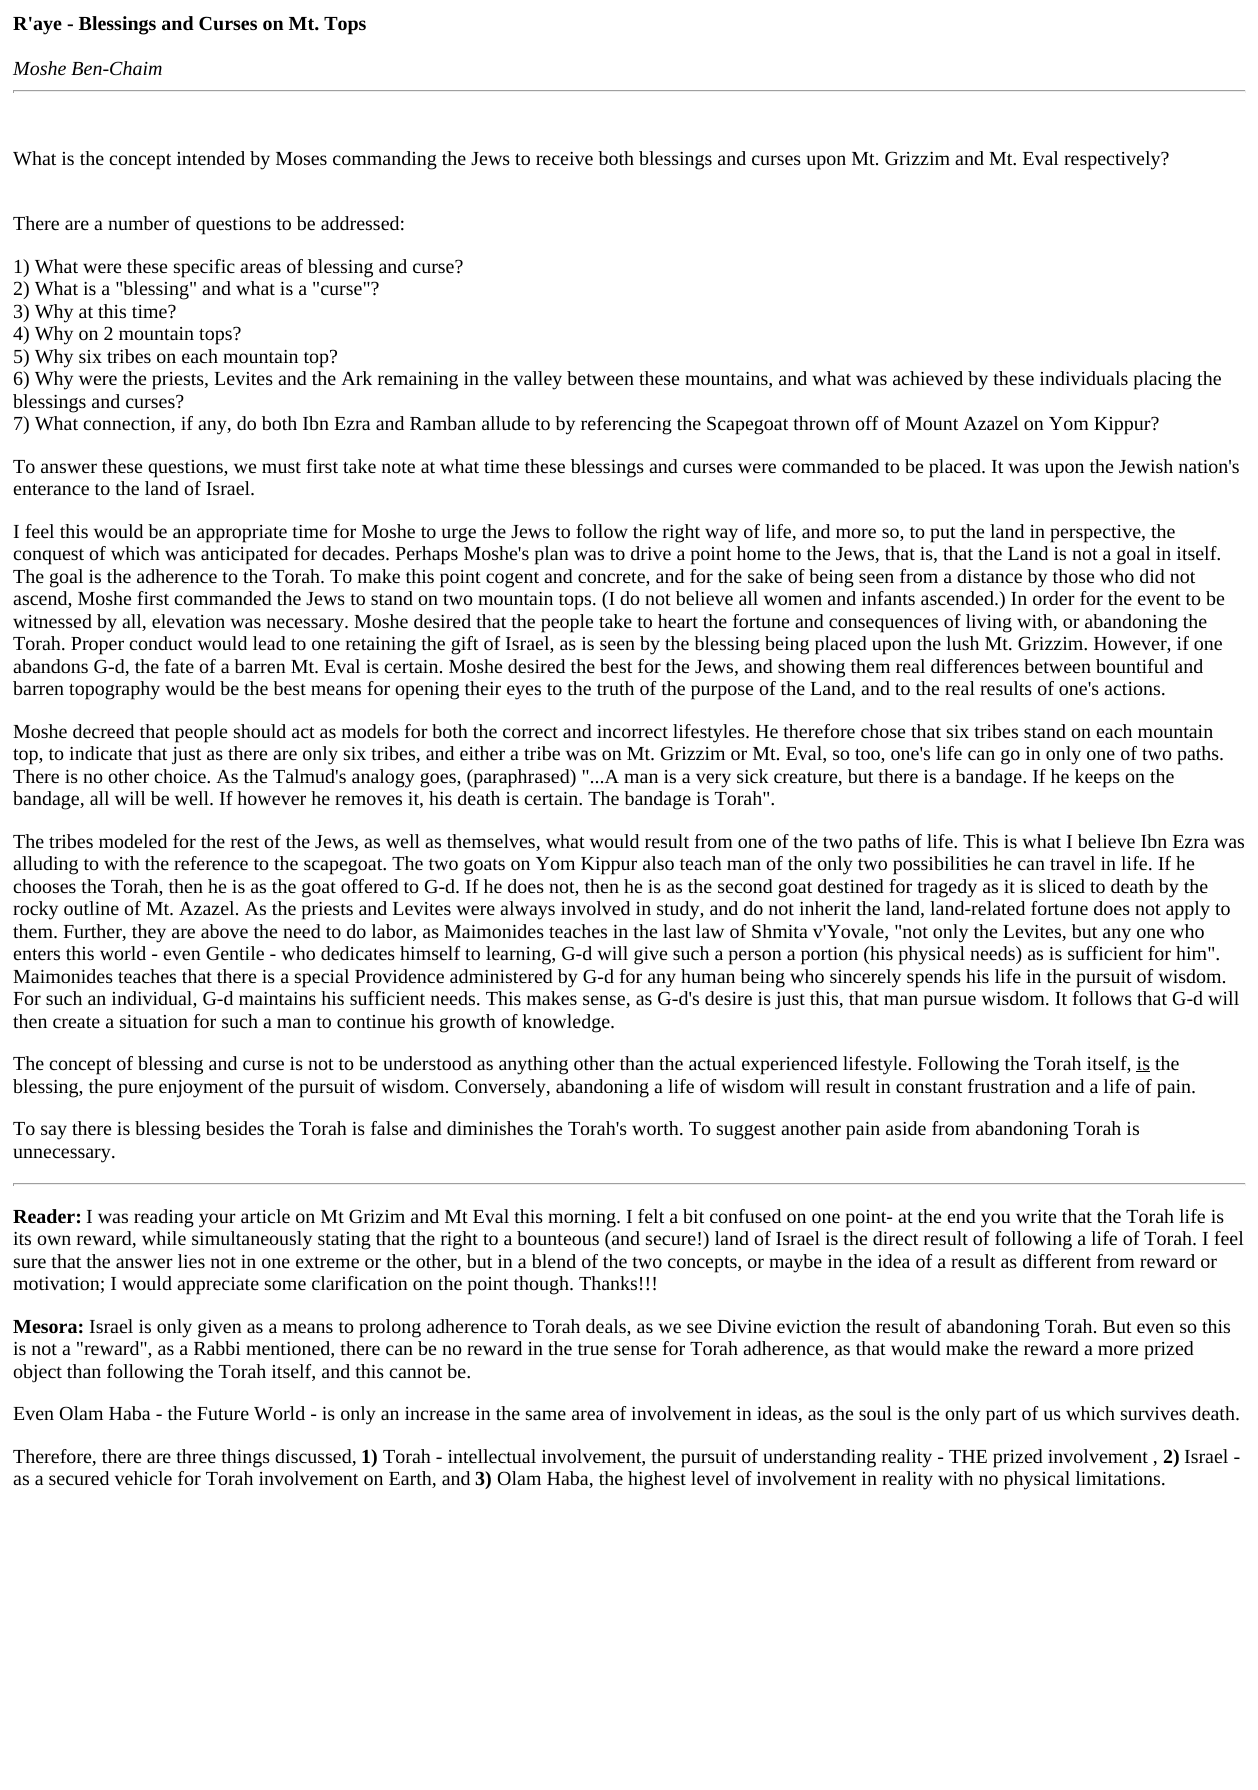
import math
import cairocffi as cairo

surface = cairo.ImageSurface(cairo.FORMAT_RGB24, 1258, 1790)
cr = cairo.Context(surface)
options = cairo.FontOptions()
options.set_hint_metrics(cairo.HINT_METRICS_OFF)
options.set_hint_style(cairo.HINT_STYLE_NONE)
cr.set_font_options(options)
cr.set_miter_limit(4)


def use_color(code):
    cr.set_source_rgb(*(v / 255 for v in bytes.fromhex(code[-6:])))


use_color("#ffffff")
cr.paint()
cr.select_font_face("Liberation Serif", cairo.FONT_SLANT_NORMAL, cairo.FONT_WEIGHT_BOLD)
cr.set_font_size(20)
use_color("#000000")
cr.move_to(13, 30)
cr.show_text("R'aye - Blessings and Curses on Mt. Tops")
cr.select_font_face("Liberation Serif", cairo.FONT_SLANT_ITALIC)
cr.move_to(13, 75)
cr.show_text("Moshe Ben-Chaim")
use_color("#9f9f9f")
cr.rectangle(13, 90, 1233, 1)
cr.fill()
use_color("#eeeeee")
cr.rectangle(1245, 90, 1, 3)
cr.fill()
cr.rectangle(13, 91, 1233, 1)
cr.fill()
use_color("#9f9f9f")
cr.rectangle(13, 90, 1, 3)
cr.fill()
cr.select_font_face("Liberation Serif")
use_color("#000000")
cr.move_to(13, 165)
cr.show_text("What is the concept intended by Moses commanding the Jews to receive both blessings and curses upon Mt. Grizzim and Mt. Eval respectively?")
cr.move_to(13, 230)
cr.show_text("There are a number of questions to be addressed:")
cr.move_to(13, 273)
cr.show_text("1) What were these specific areas of blessing and curse?")
cr.move_to(13, 295)
cr.show_text("2) What is a \"blessing\" and what is a \"curse\"?")
cr.move_to(13, 318)
cr.show_text("3) Why at this time?")
cr.move_to(13, 340)
cr.show_text("4) Why on 2 mountain tops?")
cr.move_to(13, 363)
cr.show_text("5) Why six tribes on each mountain top?")
cr.move_to(13, 385)
cr.show_text("6) Why were the priests, Levites and the Ark remaining in the valley between these mountains, and what was achieved by these individuals placing the")
cr.move_to(13, 408)
cr.show_text("blessings and curses?")
cr.move_to(13, 430)
cr.show_text("7) What connection, if any, do both Ibn Ezra and Ramban allude to by referencing the Scapegoat thrown off of Mount Azazel on Yom Kippur?")
cr.move_to(13, 473)
cr.show_text("To answer these questions, we must first take note at what time these blessings and curses were commanded to be placed. It was upon the Jewish nation's")
cr.move_to(13, 495)
cr.show_text("enterance to the land of Israel.")
cr.move_to(13, 538)
cr.show_text("I feel this would be an appropriate time for Moshe to urge the Jews to follow the right way of life, and more so, to put the land in perspective, the")
cr.move_to(13, 560)
cr.show_text("conquest of which was anticipated for decades. Perhaps Moshe's plan was to drive a point home to the Jews, that is, that the Land is not a goal in itself.")
cr.move_to(13, 583)
cr.show_text("The goal is the adherence to the Torah. To make this point cogent and concrete, and for the sake of being seen from a distance by those who did not")
cr.move_to(13, 605)
cr.show_text("ascend, Moshe first commanded the Jews to stand on two mountain tops. (I do not believe all women and infants ascended.) In order for the event to be")
cr.move_to(13, 628)
cr.show_text("witnessed by all, elevation was necessary. Moshe desired that the people take to heart the fortune and consequences of living with, or abandoning the")
cr.move_to(13, 650)
cr.show_text("Torah. Proper conduct would lead to one retaining the gift of Israel, as is seen by the blessing being placed upon the lush Mt. Grizzim. However, if one")
cr.move_to(13, 673)
cr.show_text("abandons G-d, the fate of a barren Mt. Eval is certain. Moshe desired the best for the Jews, and showing them real differences between bountiful and")
cr.move_to(13, 695)
cr.show_text("barren topography would be the best means for opening their eyes to the truth of the purpose of the Land, and to the real results of one's actions.")
cr.move_to(13, 738)
cr.show_text("Moshe decreed that people should act as models for both the correct and incorrect lifestyles. He therefore chose that six tribes stand on each mountain")
cr.move_to(13, 760)
cr.show_text("top, to indicate that just as there are only six tribes, and either a tribe was on Mt. Grizzim or Mt. Eval, so too, one's life can go in only one of two paths.")
cr.move_to(13, 783)
cr.show_text("There is no other choice. As the Talmud's analogy goes, (paraphrased) \"...A man is a very sick creature, but there is a bandage. If he keeps on the")
cr.move_to(13, 805)
cr.show_text("bandage, all will be well. If however he removes it, his death is certain. The bandage is Torah\".")
cr.move_to(13, 848)
cr.show_text("The tribes modeled for the rest of the Jews, as well as themselves, what would result from one of the two paths of life. This is what I believe Ibn Ezra was")
cr.move_to(13, 870)
cr.show_text("alluding to with the reference to the scapegoat. The two goats on Yom Kippur also teach man of the only two possibilities he can travel in life. If he")
cr.move_to(13, 893)
cr.show_text("chooses the Torah, then he is as the goat offered to G-d. If he does not, then he is as the second goat destined for tragedy as it is sliced to death by the")
cr.move_to(13, 915)
cr.show_text("rocky outline of Mt. Azazel. As the priests and Levites were always involved in study, and do not inherit the land, land-related fortune does not apply to")
cr.move_to(13, 938)
cr.show_text("them. Further, they are above the need to do labor, as Maimonides teaches in the last law of Shmita v'Yovale, \"not only the Levites, but any one who")
cr.move_to(13, 960)
cr.show_text("enters this world - even Gentile - who dedicates himself to learning, G-d will give such a person a portion (his physical needs) as is sufficient for him\".")
cr.move_to(13, 983)
cr.show_text("Maimonides teaches that there is a special Providence administered by G-d for any human being who sincerely spends his life in the pursuit of wisdom.")
cr.move_to(13, 1005)
cr.show_text("For such an individual, G-d maintains his sufficient needs. This makes sense, as G-d's desire is just this, that man pursue wisdom. It follows that G-d will")
cr.move_to(13, 1028)
cr.show_text("then create a situation for such a man to continue his growth of knowledge.")
cr.move_to(13, 1070)
cr.show_text("The concept of blessing and curse is not to be understood as anything other than the actual experienced lifestyle. Following the Torah itself, is the")
cr.rectangle(1136, 1071, 14, 1)
cr.fill()
cr.move_to(13, 1093)
cr.show_text("blessing, the pure enjoyment of the pursuit of wisdom. Conversely, abandoning a life of wisdom will result in constant frustration and a life of pain.")
cr.move_to(13, 1135)
cr.show_text("To say there is blessing besides the Torah is false and diminishes the Torah's worth. To suggest another pain aside from abandoning Torah is")
cr.move_to(13, 1158)
cr.show_text("unnecessary.")
use_color("#9f9f9f")
cr.rectangle(13, 1183, 1233, 1)
cr.fill()
use_color("#eeeeee")
cr.rectangle(1245, 1183, 1, 3)
cr.fill()
cr.rectangle(13, 1184, 1233, 1)
cr.fill()
use_color("#9f9f9f")
cr.rectangle(13, 1183, 1, 3)
cr.fill()
cr.select_font_face("Liberation Serif", cairo.FONT_SLANT_NORMAL, cairo.FONT_WEIGHT_BOLD)
use_color("#000000")
cr.move_to(13, 1223)
cr.show_text("Reader:")
cr.select_font_face("Liberation Serif")
cr.move_to(86, 1223)
cr.show_text("I was reading your article on Mt Grizim and Mt Eval this morning. I felt a bit confused on one point- at the end you write that the Torah life is")
cr.move_to(13, 1245)
cr.show_text("its own reward, while simultaneously stating that the right to a bounteous (and secure!) land of Israel is the direct result of following a life of Torah. I feel")
cr.move_to(13, 1268)
cr.show_text("sure that the answer lies not in one extreme or the other, but in a blend of the two concepts, or maybe in the idea of a result as different from reward or")
cr.move_to(13, 1290)
cr.show_text("motivation; I would appreciate some clarification on the point though. Thanks!!!")
cr.select_font_face("Liberation Serif", cairo.FONT_SLANT_NORMAL, cairo.FONT_WEIGHT_BOLD)
cr.move_to(13, 1333)
cr.show_text("Mesora:")
cr.select_font_face("Liberation Serif")
cr.move_to(89, 1333)
cr.show_text("Israel is only given as a means to prolong adherence to Torah deals, as we see Divine eviction the result of abandoning Torah. But even so this")
cr.move_to(13, 1355)
cr.show_text("is not a \"reward\", as a Rabbi mentioned, there can be no reward in the true sense for Torah adherence, as that would make the reward a more prized")
cr.move_to(13, 1378)
cr.show_text("object than following the Torah itself, and this cannot be.")
cr.move_to(13, 1420)
cr.show_text("Even Olam Haba - the Future World - is only an increase in the same area of involvement in ideas, as the soul is the only part of us which survives death.")
cr.move_to(13, 1463)
cr.show_text("Therefore, there are three things discussed,")
cr.select_font_face("Liberation Serif", cairo.FONT_SLANT_NORMAL, cairo.FONT_WEIGHT_BOLD)
cr.move_to(361, 1463)
cr.show_text("1)")
cr.select_font_face("Liberation Serif")
cr.move_to(383, 1463)
cr.show_text("Torah - intellectual involvement, the pursuit of understanding reality - THE prized involvement ,")
cr.select_font_face("Liberation Serif", cairo.FONT_SLANT_NORMAL, cairo.FONT_WEIGHT_BOLD)
cr.move_to(1163, 1463)
cr.show_text("2)")
cr.select_font_face("Liberation Serif")
cr.move_to(1184, 1463)
cr.show_text("Israel -")
cr.move_to(13, 1485)
cr.show_text("as a secured vehicle for Torah involvement on Earth, and")
cr.select_font_face("Liberation Serif", cairo.FONT_SLANT_NORMAL, cairo.FONT_WEIGHT_BOLD)
cr.move_to(475, 1485)
cr.show_text("3)")
cr.select_font_face("Liberation Serif")
cr.move_to(497, 1485)
cr.show_text("Olam Haba, the highest level of involvement in reality with no physical limitations.")
surface.write_to_png("result.png")
